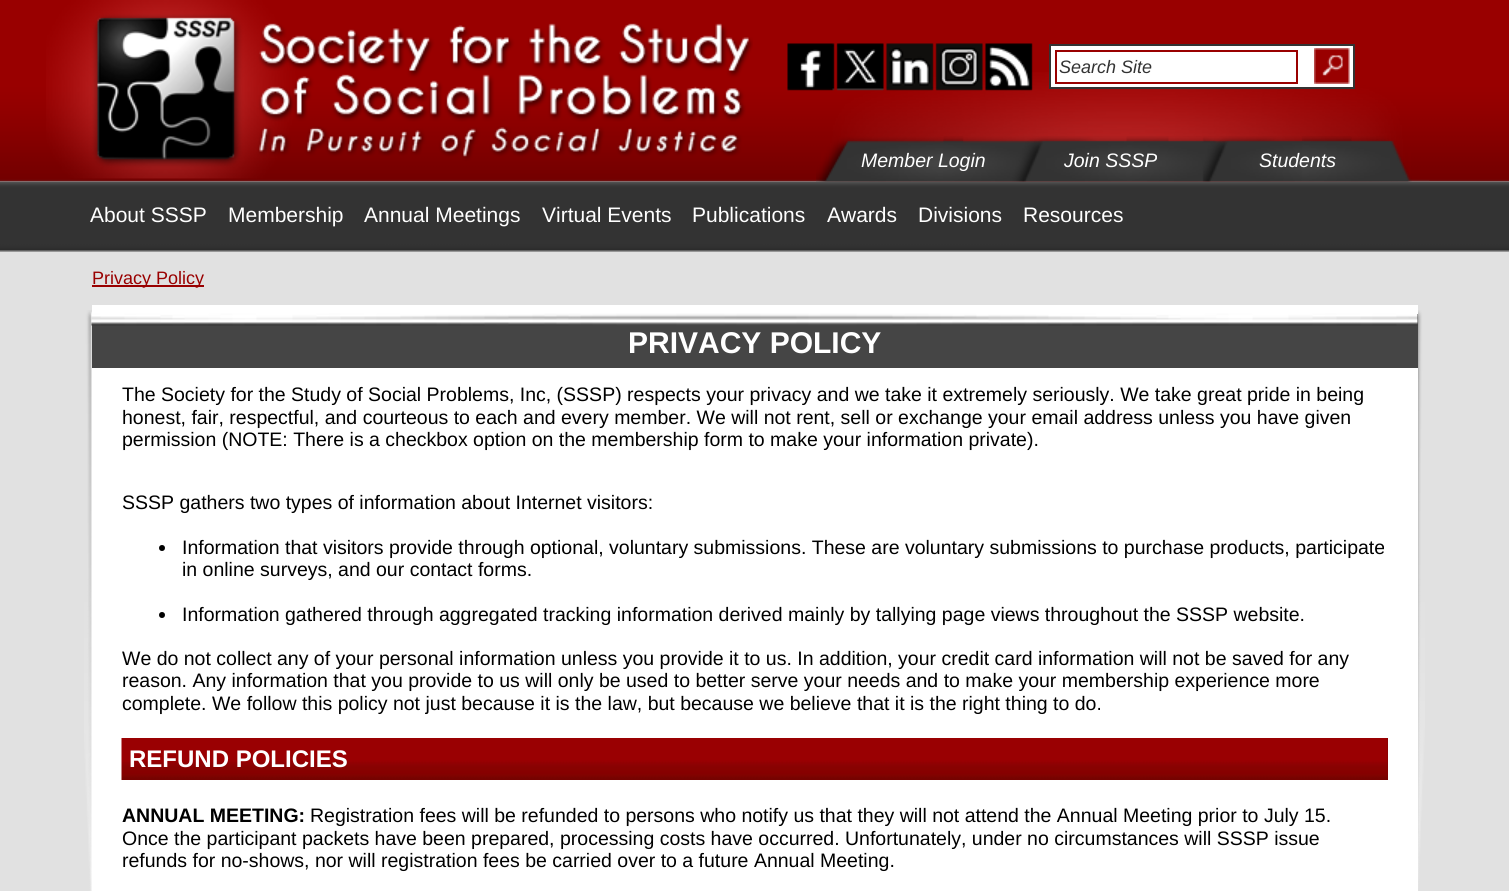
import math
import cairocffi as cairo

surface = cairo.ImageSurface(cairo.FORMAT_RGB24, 1509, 891)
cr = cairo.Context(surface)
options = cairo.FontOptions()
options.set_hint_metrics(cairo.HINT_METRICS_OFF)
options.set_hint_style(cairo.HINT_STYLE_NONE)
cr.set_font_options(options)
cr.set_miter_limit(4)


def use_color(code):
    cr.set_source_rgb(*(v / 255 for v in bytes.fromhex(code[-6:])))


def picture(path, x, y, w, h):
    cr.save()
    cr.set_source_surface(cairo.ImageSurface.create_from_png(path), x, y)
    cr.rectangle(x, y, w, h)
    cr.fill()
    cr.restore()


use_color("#ffffff")
cr.paint()
picture("img1.png", 0, 0, 1509, 182)
picture("img2.png", 46, 0, 707, 179)
picture("img7.png", 0, 181, 1509, 71)
picture("img3.png", 816, 72, 614, 110)
picture("img4.png", 787, 43, 246, 48)
use_color("#ffffff")
cr.rectangle(1050, 45, 304, 43)
cr.fill_preserve()
use_color("#333333")
cr.stroke()
cr.rectangle(1056, 51, 241, 32)
use_color("#990000")
cr.stroke()
cr.select_font_face("Liberation Sans", cairo.FONT_SLANT_ITALIC)
cr.set_font_size(18)
use_color("#333333")
cr.move_to(1059, 73)
cr.show_text("Search Site")
picture("img5.png", 1314, 48, 36, 36)
picture("img6.png", 816, 136, 596, 46)
cr.set_font_size(19.5)
use_color("#ffffff")
cr.move_to(861, 167)
cr.show_text("Member Login")
cr.move_to(1064, 167)
cr.show_text("Join SSSP")
cr.move_to(1259, 167)
cr.show_text("Students")
cr.select_font_face("Liberation Sans")
cr.set_font_size(21)
cr.move_to(90, 222)
cr.show_text("About SSSP")
cr.move_to(228, 222)
cr.show_text("Membership")
cr.move_to(364, 222)
cr.show_text("Annual Meetings")
cr.move_to(542, 222)
cr.show_text("Virtual Events")
cr.move_to(692, 222)
cr.show_text("Publications")
cr.move_to(827, 222)
cr.show_text("Awards")
cr.move_to(918, 222)
cr.show_text("Divisions")
cr.move_to(1023, 222)
cr.show_text("Resources")
use_color("#e1e1e1")
cr.rectangle(0, 252, 1509, 639)
cr.fill()
use_color("#990000")
cr.rectangle(92, 285, 112, 2)
cr.fill()
cr.set_font_size(18)
cr.move_to(92, 284)
cr.show_text("Privacy Policy")
picture("img8.png", 84, 310, 1341, 581)
use_color("#ffffff")
cr.rectangle(92, 305, 1326, 586)
cr.fill()
use_color("#454545")
cr.rectangle(92, 314, 1326, 54)
cr.fill()
picture("img9.png", 91, 313, 1327, 13)
cr.select_font_face("Liberation Sans", cairo.FONT_SLANT_NORMAL, cairo.FONT_WEIGHT_BOLD)
cr.set_font_size(30)
use_color("#ffffff")
cr.move_to(628, 353)
cr.show_text("PRIVACY POLICY")
cr.select_font_face("Liberation Sans")
cr.set_font_size(19.5)
use_color("#000000")
cr.move_to(122, 401)
cr.show_text("The Society for the Study of Social Problems, Inc, (SSSP) respects your privacy and we take it extremely seriously. We take great pride in being")
cr.move_to(122, 424)
cr.show_text("honest, fair, respectful, and courteous to each and every member. We will not rent, sell or exchange your email address unless you have given")
cr.move_to(122, 446)
cr.show_text("permission (NOTE: There is a checkbox option on the membership form to make your information private).")
cr.move_to(122, 509)
cr.show_text("SSSP gathers two types of information about Internet visitors:")
cr.new_path()
cr.arc(162, 548, 3, 0, 2 * math.pi)
cr.fill()
cr.move_to(182, 554)
cr.show_text("Information that visitors provide through optional, voluntary submissions. These are voluntary submissions to purchase products, participate")
cr.move_to(182, 576)
cr.show_text("in online surveys, and our contact forms.")
cr.new_path()
cr.arc(162, 615, 3, 0, 2 * math.pi)
cr.fill()
cr.move_to(182, 621)
cr.show_text("Information gathered through aggregated tracking information derived mainly by tallying page views throughout the SSSP website.")
cr.move_to(122, 665)
cr.show_text("We do not collect any of your personal information unless you provide it to us. In addition, your credit card information will not be saved for any")
cr.move_to(122, 687)
cr.show_text("reason. Any information that you provide to us will only be used to better serve your needs and to make your membership experience more")
cr.move_to(122, 710)
cr.show_text("complete. We follow this policy not just because it is the law, but because we believe that it is the right thing to do.")
use_color("#7c0100")
cr.rectangle(1387, 738, 1, 42)
cr.fill()
picture("img10.png", 121, 738, 1267, 42)
cr.select_font_face("Liberation Sans", cairo.FONT_SLANT_NORMAL, cairo.FONT_WEIGHT_BOLD)
cr.set_font_size(24)
use_color("#ffffff")
cr.move_to(129, 767)
cr.show_text("REFUND POLICIES")
cr.set_font_size(19.5)
use_color("#000000")
cr.move_to(122, 822)
cr.show_text("ANNUAL MEETING:")
cr.select_font_face("Liberation Sans")
cr.move_to(310, 822)
cr.show_text("Registration fees will be refunded to persons who notify us that they will not attend the Annual Meeting prior to July 15.")
cr.move_to(122, 845)
cr.show_text("Once the participant packets have been prepared, processing costs have occurred. Unfortunately, under no circumstances will SSSP issue")
cr.move_to(122, 867)
cr.show_text("refunds for no-shows, nor will registration fees be carried over to a future Annual Meeting.")
surface.write_to_png("result.png")
